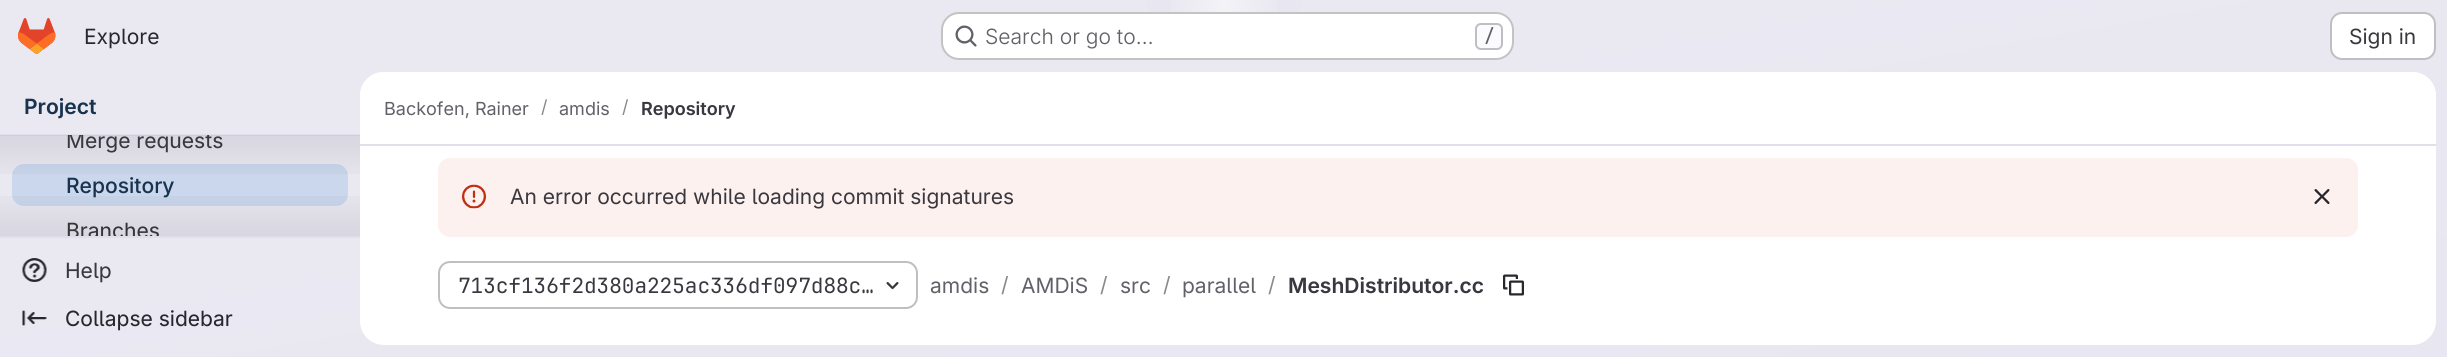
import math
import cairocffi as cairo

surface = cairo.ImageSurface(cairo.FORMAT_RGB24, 2447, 357)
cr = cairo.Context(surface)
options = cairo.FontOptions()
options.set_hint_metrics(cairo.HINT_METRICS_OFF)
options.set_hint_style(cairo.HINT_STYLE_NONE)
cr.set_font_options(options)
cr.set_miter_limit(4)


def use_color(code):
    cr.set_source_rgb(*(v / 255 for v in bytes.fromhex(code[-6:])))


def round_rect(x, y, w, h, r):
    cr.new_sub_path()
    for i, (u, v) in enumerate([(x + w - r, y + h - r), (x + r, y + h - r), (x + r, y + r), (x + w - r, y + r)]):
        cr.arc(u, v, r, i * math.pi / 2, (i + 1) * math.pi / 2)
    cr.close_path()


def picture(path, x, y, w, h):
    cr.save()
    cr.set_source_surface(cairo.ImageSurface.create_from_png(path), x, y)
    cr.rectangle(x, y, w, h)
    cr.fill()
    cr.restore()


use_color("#ffffff")
cr.paint()
gradient = cairo.LinearGradient(1291, 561, 1157, -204)
gradient.add_color_stop_rgba(0, 0.91, 0.902, 0.941, 1)
gradient.add_color_stop_rgba(0.7, 0.918, 0.914, 0.949, 1)
cr.set_source(gradient)
cr.rectangle(0, 0, 2447, 357)
cr.fill()
gradient = cairo.RadialGradient(0, 0, 0, 0, 0, 1)
gradient.set_matrix(cairo.Matrix(1 / 1224, 0, 0, 1 / 357, -1 * 1224 / 1224, -1 * 0 / 357))
gradient.add_color_stop_rgba(0, 0.894, 0.886, 0.929, 1)
gradient.add_color_stop_rgba(0.09, 0.894, 0.886, 0.929, 0)
cr.set_source(gradient)
cr.rectangle(1146, 0, 156, 12)
cr.fill()
gradient = cairo.RadialGradient(1224, 0, 0, 1224, 0, 1275)
gradient.add_color_stop_rgba(0, 1, 1, 1, 0.6)
gradient.add_color_stop_rgba(0.05, 1, 1, 1, 0)
cr.set_source(gradient)
cr.rectangle(1170, 0, 108, 51)
cr.fill()
picture("img1.png", 18, 18, 38, 36)
cr.select_font_face("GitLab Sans")
cr.set_font_size(21)
use_color("#28272d")
cr.move_to(84, 44)
cr.show_text("Explore")
use_color("#ffffff")
round_rect(941, 12, 573, 48, 18)
cr.fill()
round_rect(942, 13, 571, 46, 17)
cr.set_source_rgba(0.02, 0.02, 0.024, 0.24)
cr.stroke()
picture("img2.png", 955, 25, 22, 22)
cr.select_font_face("GitLab Sans Light")
use_color("#626168")
cr.move_to(985, 44)
cr.show_text("Search or go to…")
use_color("#fbfafd")
round_rect(1476, 24, 26, 25, 5)
cr.fill_preserve()
use_color("#bfbfc3")
cr.stroke()
cr.select_font_face("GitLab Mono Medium")
cr.set_font_size(18)
use_color("#626168")
cr.move_to(1484, 42)
cr.show_text("/")
use_color("#ffffff")
round_rect(2331, 13, 104, 46, 11)
cr.fill_preserve()
use_color("#bfbfc3")
cr.stroke()
cr.select_font_face("GitLab Sans")
cr.set_font_size(21)
use_color("#3a383f")
cr.move_to(2349, 44)
cr.show_text("Sign in")
cr.select_font_face("GitLab Sans SemiBold")
use_color("#18334e")
cr.move_to(24, 114)
cr.show_text("Project")
use_color("#e1dfec")
cr.rectangle(0, 134, 360, 2)
cr.fill()
cr.rectangle(0, 236, 360, 2)
cr.fill()
use_color("#cad7ec")
round_rect(12, 164, 336, 42, 12)
cr.fill()
gradient = cairo.LinearGradient(180, 135, 180, 189)
gradient.add_color_stop_rgba(0, 0.02, 0.02, 0.024, 0.08)
gradient.add_color_stop_rgba(1, 0.02, 0.02, 0.024, 0)
cr.set_source(gradient)
cr.rectangle(0, 135, 360, 39)
cr.fill()
cr.save()
cr.rectangle(0, 135, 360, 101)
cr.clip()
cr.select_font_face("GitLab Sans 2")
use_color("#3a383f")
cr.move_to(66, 148)
cr.show_text("Merge requests")
cr.restore()
cr.select_font_face("GitLab Sans Medium")
use_color("#18334e")
cr.move_to(66, 193)
cr.show_text("Repository")
cr.save()
cr.rectangle(0, 135, 360, 101)
cr.clip()
cr.select_font_face("GitLab Sans 2")
use_color("#3a383f")
cr.move_to(66, 238)
cr.show_text("Branches")
cr.restore()
gradient = cairo.LinearGradient(180, 181, 180, 236)
gradient.add_color_stop_rgba(0, 0.02, 0.02, 0.024, 0)
gradient.add_color_stop_rgba(1, 0.02, 0.02, 0.024, 0.08)
cr.set_source(gradient)
cr.rectangle(0, 196, 360, 40)
cr.fill()
picture("img3.png", 22, 258, 25, 24)
cr.select_font_face("GitLab Sans 2")
use_color("#3a383f")
cr.move_to(65, 278)
cr.show_text("Help")
picture("img4.png", 22, 310, 25, 16)
use_color("#28272d")
cr.move_to(65, 326)
cr.show_text("Collapse sidebar")
use_color("#ffffff")
round_rect(360, 72, 2076, 273, 24)
cr.fill()
cr.new_path()
cr.move_to(384, 72)
cr.line_to(2412, 72)
cr.curve_to(2425.5, 72, 2436, 82.5, 2436, 96)
cr.line_to(2436, 146)
cr.line_to(360, 146)
cr.line_to(360, 96)
cr.curve_to(360, 82.5, 370.5, 72, 384, 72)
cr.close_path()
cr.fill()
use_color("#e1dfec")
cr.rectangle(360, 144, 2076, 2)
cr.fill()
cr.select_font_face("GitLab Sans")
cr.set_font_size(18)
use_color("#626168")
cr.move_to(384, 115)
cr.show_text("Backofen, Rainer")
use_color("#89888d")
cr.move_to(541, 113)
cr.show_text("/")
use_color("#626168")
cr.move_to(559, 115)
cr.show_text("amdis")
use_color("#89888d")
cr.move_to(622, 113)
cr.show_text("/")
cr.select_font_face("GitLab Sans SemiBold")
use_color("#3a383f")
cr.move_to(641, 115)
cr.show_text("Repository")
use_color("#fcf1ef")
round_rect(438, 158, 1920, 79, 12)
cr.fill()
picture("img5.png", 462, 184, 24, 25)
cr.select_font_face("GitLab Sans")
cr.set_font_size(21)
use_color("#3a383f")
cr.move_to(510, 204)
cr.show_text("An error occurred while loading commit signatures")
picture("img6.png", 2314, 189, 16, 15)
round_rect(439, 262, 478, 46, 11)
use_color("#bfbfc3")
cr.stroke()
cr.select_font_face("GitLab Mono")
use_color("#3a383f")
cr.move_to(458, 293)
cr.show_text("713cf136f2d380a225ac336df097d88c…")
picture("img7.png", 886, 282, 13, 8)
cr.select_font_face("GitLab Sans")
use_color("#626168")
cr.move_to(930, 293)
cr.show_text("amdis")
use_color("#89888d")
cr.move_to(1001, 292)
cr.show_text("/")
use_color("#626168")
cr.move_to(1021, 293)
cr.show_text("AMDiS")
use_color("#89888d")
cr.move_to(1100, 292)
cr.show_text("/")
use_color("#626168")
cr.move_to(1120, 293)
cr.show_text("src")
use_color("#89888d")
cr.move_to(1163, 292)
cr.show_text("/")
use_color("#626168")
cr.move_to(1182, 293)
cr.show_text("parallel")
use_color("#89888d")
cr.move_to(1268, 292)
cr.show_text("/")
cr.select_font_face("GitLab Sans SemiBold")
use_color("#3a383f")
cr.move_to(1288, 293)
cr.show_text("MeshDistributor.cc")
picture("img8.png", 1503, 274, 21, 22)
surface.write_to_png("result.png")
